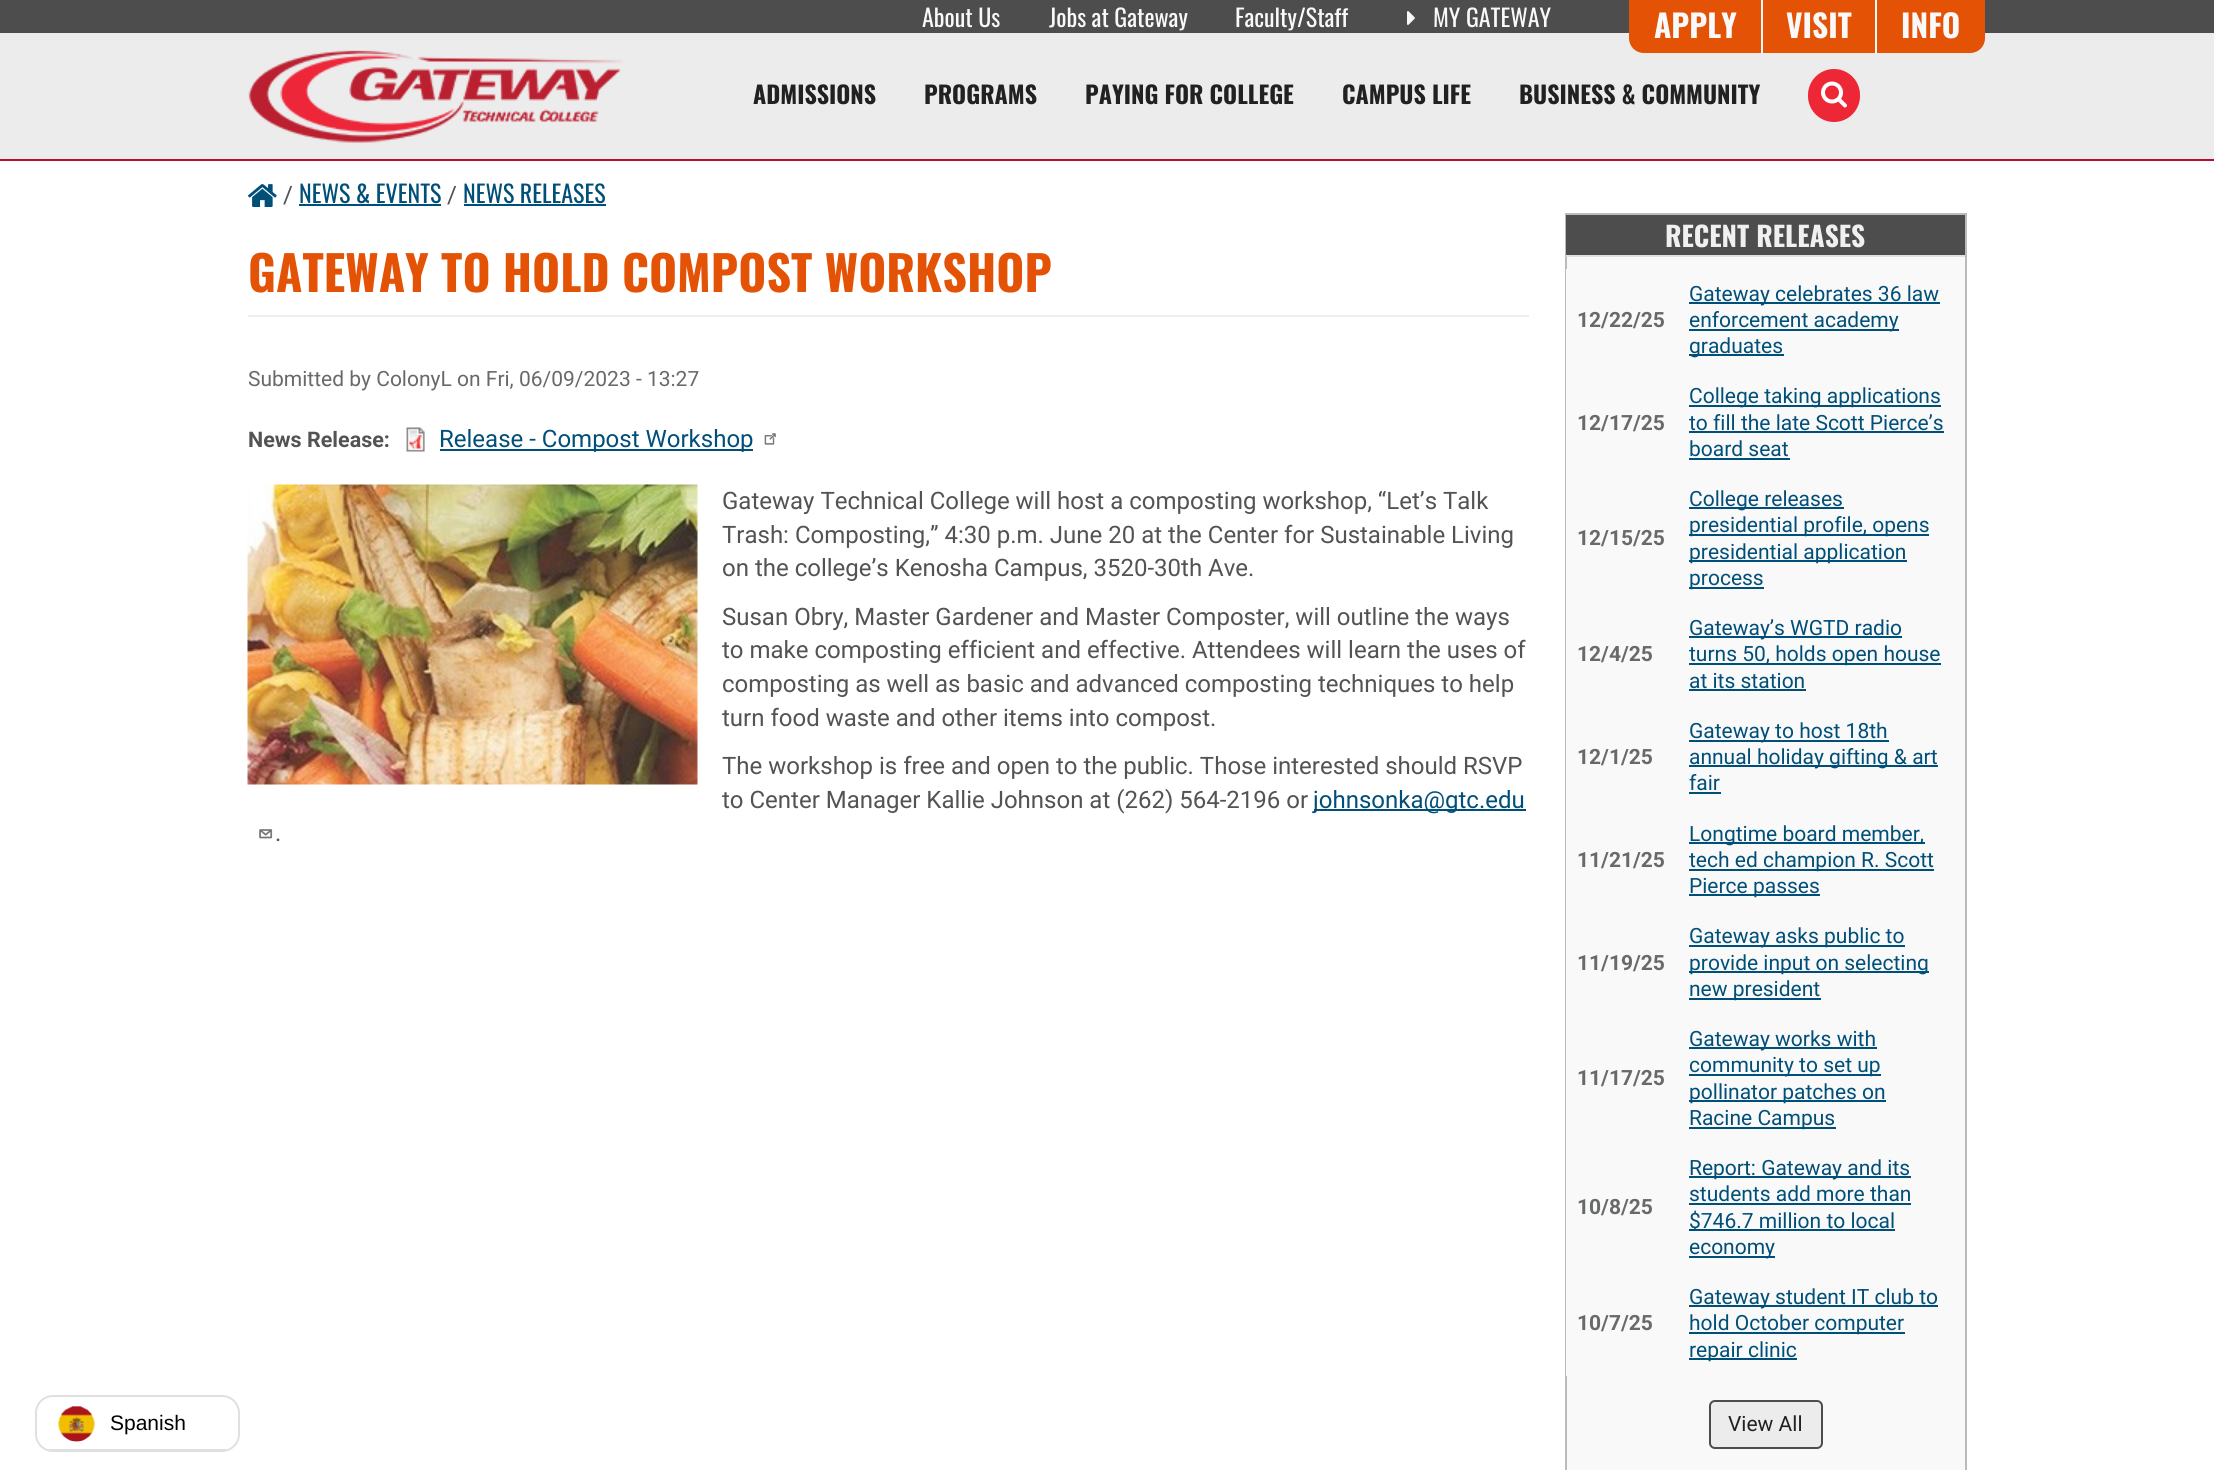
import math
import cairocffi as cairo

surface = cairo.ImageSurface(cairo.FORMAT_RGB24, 2214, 1470)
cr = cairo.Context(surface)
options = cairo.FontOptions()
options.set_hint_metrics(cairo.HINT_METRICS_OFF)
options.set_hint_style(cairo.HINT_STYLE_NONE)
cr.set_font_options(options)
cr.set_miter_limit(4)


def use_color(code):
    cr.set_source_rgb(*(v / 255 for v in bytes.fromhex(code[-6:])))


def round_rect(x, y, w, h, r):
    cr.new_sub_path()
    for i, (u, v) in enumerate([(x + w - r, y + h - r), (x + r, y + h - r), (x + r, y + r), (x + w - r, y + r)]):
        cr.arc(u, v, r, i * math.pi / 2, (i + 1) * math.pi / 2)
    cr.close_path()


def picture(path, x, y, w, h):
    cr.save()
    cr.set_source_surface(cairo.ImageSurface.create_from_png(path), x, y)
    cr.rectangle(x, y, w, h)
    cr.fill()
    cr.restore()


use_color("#ffffff")
cr.paint()
round_rect(36, 1396, 203, 55, 17)
use_color("#e0e0e0")
cr.stroke()
cr.save()
round_rect(36, 1397, 203, 54, 17)
cr.clip()
cr.rectangle(45, 1449, 185, 2)
cr.fill()
cr.restore()
picture("img1.png", 58, 1406, 37, 36)
cr.select_font_face("Liberation Sans")
cr.set_font_size(21)
use_color("#000000")
cr.move_to(110, 1430)
cr.show_text("Spanish")
use_color("#ba0c2f")
cr.rectangle(0, 159, 2214, 2)
cr.fill()
use_color("#4d4d4d")
cr.rectangle(0, 0, 2214, 33)
cr.fill()
cr.select_font_face("Oswald")
cr.set_font_size(24)
use_color("#f9f9f9")
cr.move_to(922, 27)
cr.show_text("About Us")
cr.move_to(1049, 27)
cr.show_text("Jobs at Gateway")
cr.move_to(1235, 27)
cr.show_text("Faculty/Staff")
picture("img2.png", 1407, 11, 8, 14)
cr.move_to(1433, 27)
cr.show_text("MY GATEWAY")
use_color("#ececec")
cr.rectangle(0, 33, 2214, 126)
cr.fill()
use_color("#e35205")
cr.new_path()
cr.move_to(1629, 0)
cr.line_to(1763, 0)
cr.line_to(1763, 53)
cr.line_to(1644, 53)
cr.curve_to(1635.5, 53, 1629, 46.5, 1629, 38)
cr.close_path()
cr.fill()
use_color("#f9f9f9")
cr.rectangle(1761, 0, 2, 53)
cr.fill()
cr.select_font_face("Oswald", cairo.FONT_SLANT_NORMAL, cairo.FONT_WEIGHT_BOLD)
cr.set_font_size(31.5)
cr.move_to(1654, 38)
cr.show_text("APPLY")
use_color("#e35205")
cr.rectangle(1763, 0, 112, 53)
cr.fill()
use_color("#f9f9f9")
cr.move_to(1786, 38)
cr.show_text("VISIT")
use_color("#e35205")
cr.new_path()
cr.move_to(1875, 0)
cr.line_to(1985, 0)
cr.line_to(1985, 38)
cr.curve_to(1985, 46.5, 1978.5, 53, 1970, 53)
cr.line_to(1875, 53)
cr.close_path()
cr.fill()
use_color("#f9f9f9")
cr.rectangle(1875, 0, 2, 53)
cr.fill()
cr.move_to(1901, 38)
cr.show_text("INFO")
picture("img3.png", 248, 50, 375, 93)
cr.set_font_size(24)
use_color("#212121")
cr.move_to(753, 104)
cr.show_text("ADMISSIONS")
cr.move_to(924, 104)
cr.show_text("PROGRAMS")
cr.move_to(1085, 104)
cr.show_text("PAYING FOR COLLEGE")
cr.move_to(1342, 104)
cr.show_text("CAMPUS LIFE")
cr.move_to(1519, 104)
cr.show_text("BUSINESS & COMMUNITY")
use_color("#ee2737")
round_rect(1808, 69, 52, 53, 26)
cr.fill()
picture("img4.png", 1821, 81, 26, 27)
picture("img5.png", 248, 184, 29, 23)
cr.select_font_face("Roboto")
use_color("#535353")
cr.move_to(283, 203)
cr.show_text("/")
cr.select_font_face("Oswald")
use_color("#004f79")
cr.move_to(299, 203)
cr.show_text("NEWS & EVENTS")
cr.rectangle(299, 204, 142, 2)
cr.fill()
cr.select_font_face("Roboto")
use_color("#535353")
cr.move_to(447, 203)
cr.show_text("/")
cr.select_font_face("Oswald")
use_color("#004f79")
cr.move_to(463, 203)
cr.show_text("NEWS RELEASES")
cr.rectangle(464, 204, 142, 2)
cr.fill()
use_color("#eeeeee")
cr.rectangle(248, 315, 1281, 2)
cr.fill()
cr.select_font_face("Oswald", cairo.FONT_SLANT_NORMAL, cairo.FONT_WEIGHT_BOLD)
cr.set_font_size(48)
use_color("#e35205")
cr.move_to(248, 292)
cr.show_text("GATEWAY TO HOLD COMPOST WORKSHOP")
cr.select_font_face("Roboto")
cr.set_font_size(21)
use_color("#68696b")
cr.move_to(248, 386)
cr.show_text("Submitted by ColonyL on Fri, 06/09/2023 - 13:27")
cr.select_font_face("Roboto", cairo.FONT_SLANT_NORMAL, cairo.FONT_WEIGHT_BOLD)
cr.set_font_size(21.5)
use_color("#535353")
cr.move_to(248, 447)
cr.show_text("News Release:")
picture("img6.png", 406, 427, 19, 25)
use_color("#004f79")
cr.rectangle(440, 449, 313, 2)
cr.fill()
cr.select_font_face("Roboto")
cr.set_font_size(24)
cr.move_to(439, 447)
cr.show_text("Release - Compost Workshop")
picture("img7.png", 764, 433, 12, 12)
picture("img8.png", 247, 484, 451, 301)
use_color("#535353")
cr.move_to(722, 509)
cr.show_text("Gateway Technical College will host a composting workshop, “Let’s Talk")
cr.move_to(722, 543)
cr.show_text("Trash: Composting,” 4:30 p.m. June 20 at the Center for Sustainable Living")
cr.move_to(722, 576)
cr.show_text("on the college’s Kenosha Campus, 3520-30th Ave.")
cr.move_to(722, 625)
cr.show_text("Susan Obry, Master Gardener and Master Composter, will outline the ways")
cr.move_to(722, 658)
cr.show_text("to make composting efficient and effective. Attendees will learn the uses of")
cr.move_to(722, 692)
cr.show_text("composting as well as basic and advanced composting techniques to help")
cr.move_to(722, 726)
cr.show_text("turn food waste and other items into compost.")
cr.move_to(722, 774)
cr.show_text("The workshop is free and open to the public. Those interested should RSVP")
cr.move_to(722, 808)
cr.show_text("to Center Manager Kallie Johnson at (262) 564-2196 or")
use_color("#004f79")
cr.rectangle(1314, 809, 212, 2)
cr.fill()
cr.move_to(1313, 808)
cr.show_text("johnsonka@gtc.edu")
picture("img9.png", 259, 829, 14, 10)
use_color("#535353")
cr.move_to(275, 841)
cr.show_text(".")
use_color("#f9f9f9")
cr.rectangle(1567, 257, 398, 1213)
cr.fill()
cr.rectangle(1566, 214, 400, 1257)
use_color("#bbbbbb")
cr.stroke()
use_color("#4d4d4d")
cr.rectangle(1566, 215, 399, 40)
cr.fill()
use_color("#dee2e6")
cr.rectangle(1566, 255, 399, 2)
cr.fill()
cr.select_font_face("Oswald", cairo.FONT_SLANT_NORMAL, cairo.FONT_WEIGHT_BOLD)
cr.set_font_size(27.5)
use_color("#f0f0f0")
cr.move_to(1665, 247)
cr.show_text("RECENT RELEASES")
use_color("#f9f9f9")
cr.rectangle(1566, 269, 1, 1107)
cr.fill()
cr.select_font_face("Roboto", cairo.FONT_SLANT_NORMAL, cairo.FONT_WEIGHT_BOLD)
cr.set_font_size(21)
use_color("#68696b")
cr.move_to(1577, 327)
cr.show_text("12/22/25")
use_color("#004f79")
cr.rectangle(1689, 302, 251, 2)
cr.fill()
cr.select_font_face("Roboto")
cr.move_to(1689, 301)
cr.show_text("Gateway celebrates 36 law")
cr.rectangle(1689, 329, 210, 2)
cr.fill()
cr.move_to(1689, 327)
cr.show_text("enforcement academy")
cr.rectangle(1689, 354, 95, 2)
cr.fill()
cr.move_to(1689, 353)
cr.show_text("graduates")
cr.select_font_face("Roboto", cairo.FONT_SLANT_NORMAL, cairo.FONT_WEIGHT_BOLD)
use_color("#68696b")
cr.move_to(1577, 430)
cr.show_text("12/17/25")
use_color("#004f79")
cr.rectangle(1689, 405, 252, 2)
cr.fill()
cr.select_font_face("Roboto")
cr.move_to(1689, 403)
cr.show_text("College taking applications")
cr.move_to(1689, 430)
cr.show_text("to fill the late Scott Pierce’s")
cr.rectangle(1689, 431, 255, 2)
cr.fill()
cr.move_to(1689, 456)
cr.show_text("board seat")
cr.rectangle(1689, 458, 101, 2)
cr.fill()
cr.select_font_face("Roboto", cairo.FONT_SLANT_NORMAL, cairo.FONT_WEIGHT_BOLD)
use_color("#68696b")
cr.move_to(1577, 545)
cr.show_text("12/15/25")
use_color("#004f79")
cr.rectangle(1689, 507, 155, 2)
cr.fill()
cr.select_font_face("Roboto")
cr.move_to(1689, 506)
cr.show_text("College releases")
cr.rectangle(1689, 534, 240, 2)
cr.fill()
cr.move_to(1689, 532)
cr.show_text("presidential profile, opens")
cr.rectangle(1689, 560, 218, 2)
cr.fill()
cr.move_to(1689, 559)
cr.show_text("presidential application")
cr.rectangle(1689, 587, 75, 2)
cr.fill()
cr.move_to(1689, 585)
cr.show_text("process")
cr.select_font_face("Roboto", cairo.FONT_SLANT_NORMAL, cairo.FONT_WEIGHT_BOLD)
use_color("#68696b")
cr.move_to(1577, 661)
cr.show_text("12/4/25")
use_color("#004f79")
cr.rectangle(1689, 636, 213, 2)
cr.fill()
cr.select_font_face("Roboto")
cr.move_to(1689, 635)
cr.show_text("Gateway’s WGTD radio")
cr.rectangle(1689, 663, 252, 2)
cr.fill()
cr.move_to(1689, 661)
cr.show_text("turns 50, holds open house")
cr.move_to(1689, 688)
cr.show_text("at its station")
cr.rectangle(1689, 689, 117, 2)
cr.fill()
cr.select_font_face("Roboto", cairo.FONT_SLANT_NORMAL, cairo.FONT_WEIGHT_BOLD)
use_color("#68696b")
cr.move_to(1577, 764)
cr.show_text("12/1/25")
use_color("#004f79")
cr.rectangle(1689, 740, 200, 2)
cr.fill()
cr.select_font_face("Roboto")
cr.move_to(1689, 738)
cr.show_text("Gateway to host 18th")
cr.rectangle(1689, 765, 249, 2)
cr.fill()
cr.move_to(1689, 764)
cr.show_text("annual holiday gifting & art")
cr.move_to(1689, 790)
cr.show_text("fair")
cr.rectangle(1689, 792, 32, 2)
cr.fill()
cr.select_font_face("Roboto", cairo.FONT_SLANT_NORMAL, cairo.FONT_WEIGHT_BOLD)
use_color("#68696b")
cr.move_to(1577, 867)
cr.show_text("11/21/25")
use_color("#004f79")
cr.rectangle(1689, 842, 236, 2)
cr.fill()
cr.select_font_face("Roboto")
cr.move_to(1689, 841)
cr.show_text("Longtime board member,")
cr.rectangle(1689, 869, 245, 2)
cr.fill()
cr.move_to(1689, 867)
cr.show_text("tech ed champion R. Scott")
cr.rectangle(1689, 894, 131, 2)
cr.fill()
cr.move_to(1689, 893)
cr.show_text("Pierce passes")
cr.select_font_face("Roboto", cairo.FONT_SLANT_NORMAL, cairo.FONT_WEIGHT_BOLD)
use_color("#68696b")
cr.move_to(1577, 970)
cr.show_text("11/19/25")
use_color("#004f79")
cr.rectangle(1689, 945, 216, 2)
cr.fill()
cr.select_font_face("Roboto")
cr.move_to(1689, 943)
cr.show_text("Gateway asks public to")
cr.rectangle(1689, 971, 240, 2)
cr.fill()
cr.move_to(1689, 970)
cr.show_text("provide input on selecting")
cr.rectangle(1689, 998, 132, 2)
cr.fill()
cr.move_to(1689, 996)
cr.show_text("new president")
cr.select_font_face("Roboto", cairo.FONT_SLANT_NORMAL, cairo.FONT_WEIGHT_BOLD)
use_color("#68696b")
cr.move_to(1577, 1085)
cr.show_text("11/17/25")
use_color("#004f79")
cr.rectangle(1689, 1047, 188, 2)
cr.fill()
cr.select_font_face("Roboto")
cr.move_to(1689, 1046)
cr.show_text("Gateway works with")
cr.rectangle(1689, 1074, 192, 2)
cr.fill()
cr.move_to(1689, 1072)
cr.show_text("community to set up")
cr.rectangle(1689, 1100, 197, 2)
cr.fill()
cr.move_to(1689, 1099)
cr.show_text("pollinator patches on")
cr.rectangle(1689, 1127, 147, 2)
cr.fill()
cr.move_to(1689, 1125)
cr.show_text("Racine Campus")
cr.select_font_face("Roboto", cairo.FONT_SLANT_NORMAL, cairo.FONT_WEIGHT_BOLD)
use_color("#68696b")
cr.move_to(1577, 1214)
cr.show_text("10/8/25")
use_color("#004f79")
cr.rectangle(1689, 1176, 222, 2)
cr.fill()
cr.select_font_face("Roboto")
cr.move_to(1689, 1175)
cr.show_text("Report: Gateway and its")
cr.move_to(1689, 1201)
cr.show_text("students add more than")
cr.rectangle(1689, 1203, 222, 2)
cr.fill()
cr.rectangle(1689, 1229, 206, 2)
cr.fill()
cr.move_to(1689, 1228)
cr.show_text("$746.7 million to local")
cr.rectangle(1689, 1256, 86, 2)
cr.fill()
cr.move_to(1689, 1254)
cr.show_text("economy")
cr.select_font_face("Roboto", cairo.FONT_SLANT_NORMAL, cairo.FONT_WEIGHT_BOLD)
use_color("#68696b")
cr.move_to(1577, 1330)
cr.show_text("10/7/25")
use_color("#004f79")
cr.rectangle(1689, 1305, 249, 2)
cr.fill()
cr.select_font_face("Roboto")
cr.move_to(1689, 1304)
cr.show_text("Gateway student IT club to")
cr.rectangle(1689, 1332, 216, 2)
cr.fill()
cr.move_to(1689, 1330)
cr.show_text("hold October computer")
cr.rectangle(1689, 1358, 108, 2)
cr.fill()
cr.move_to(1689, 1357)
cr.show_text("repair clinic")
use_color("#ececec")
round_rect(1710, 1401, 112, 47, 5)
cr.fill_preserve()
use_color("#4d4d4d")
cr.stroke()
use_color("#212121")
cr.move_to(1728, 1431)
cr.show_text("View All")
surface.write_to_png("result.png")
